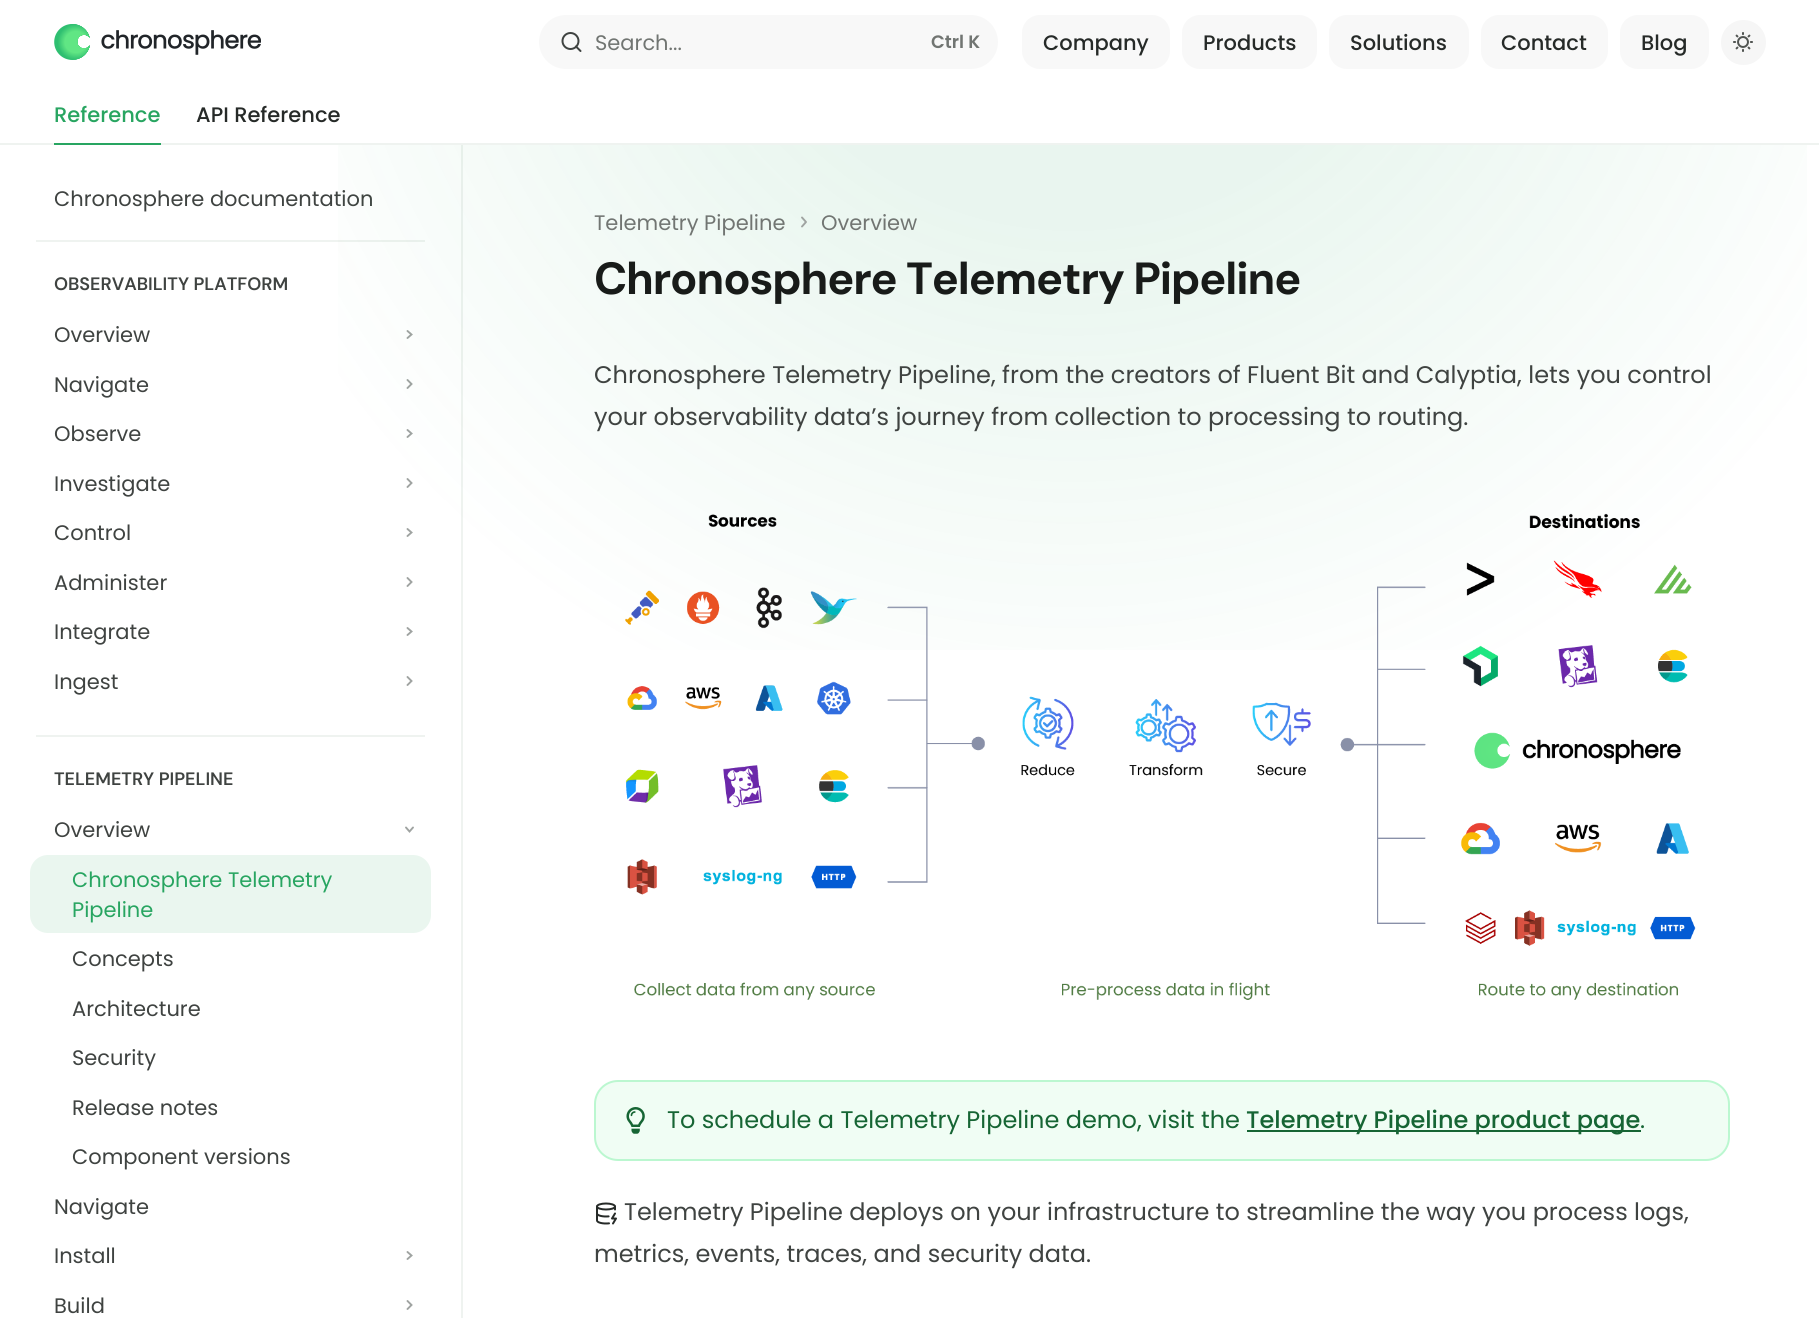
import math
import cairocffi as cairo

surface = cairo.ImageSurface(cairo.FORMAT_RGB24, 1819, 1318)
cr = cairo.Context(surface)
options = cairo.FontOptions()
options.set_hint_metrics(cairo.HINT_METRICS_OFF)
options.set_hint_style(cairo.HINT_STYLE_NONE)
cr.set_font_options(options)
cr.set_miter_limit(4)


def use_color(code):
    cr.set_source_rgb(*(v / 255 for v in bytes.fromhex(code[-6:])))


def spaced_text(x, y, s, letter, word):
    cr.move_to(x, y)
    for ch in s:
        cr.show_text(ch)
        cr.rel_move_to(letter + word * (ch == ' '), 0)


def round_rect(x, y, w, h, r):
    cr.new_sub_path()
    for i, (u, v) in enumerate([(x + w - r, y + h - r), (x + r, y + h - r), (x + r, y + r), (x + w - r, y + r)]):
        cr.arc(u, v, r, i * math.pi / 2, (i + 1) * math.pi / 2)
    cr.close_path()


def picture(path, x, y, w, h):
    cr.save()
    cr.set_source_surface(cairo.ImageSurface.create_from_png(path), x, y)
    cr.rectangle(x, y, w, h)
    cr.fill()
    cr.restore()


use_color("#ffffff")
cr.paint()
picture("img1.png", 54, 24, 207, 36)
use_color("#f8f8f8")
round_rect(539, 15, 459, 54, 27)
cr.fill()
cr.arc(570.5, 41, 8, 0, 2 * math.pi)
use_color("#3f4341")
cr.stroke()
cr.new_path()
cr.move_to(580.5, 51)
cr.line_to(576, 46.5)
cr.set_line_cap(cairo.LINE_CAP_ROUND)
cr.set_line_join(cairo.LINE_JOIN_ROUND)
cr.stroke()
cr.select_font_face("Poppins")
cr.set_font_size(21)
use_color("#717572")
cr.move_to(595, 50)
cr.show_text("Search...")
cr.select_font_face("Poppins SemiBold")
cr.set_font_size(18)
cr.move_to(931, 48)
cr.show_text("Ctrl K")
use_color("#f8f8f8")
round_rect(1022, 15, 148, 54, 18)
cr.fill()
cr.select_font_face("Poppins Medium")
cr.set_font_size(21)
use_color("#262a28")
cr.move_to(1043, 50)
cr.show_text("Company")
use_color("#f8f8f8")
round_rect(1182, 15, 135, 54, 18)
cr.fill()
use_color("#262a28")
cr.move_to(1203, 50)
cr.show_text("Products")
use_color("#f8f8f8")
round_rect(1329, 15, 140, 54, 18)
cr.fill()
use_color("#262a28")
cr.move_to(1350, 50)
cr.show_text("Solutions")
use_color("#f8f8f8")
round_rect(1481, 15, 127, 54, 18)
cr.fill()
use_color("#262a28")
cr.move_to(1501, 50)
cr.show_text("Contact")
use_color("#f8f8f8")
round_rect(1620, 15, 89, 54, 18)
cr.fill()
use_color("#262a28")
cr.move_to(1641, 50)
cr.show_text("Blog")
use_color("#f6f6f6")
cr.new_path()
cr.arc(1743.5, 42.5, 22.5, 0, 2 * math.pi)
cr.fill()
picture("img2.png", 1733, 32, 20, 20)
use_color("#28a561")
cr.move_to(54, 122)
cr.show_text("Reference")
use_color("#eff3f0")
cr.rectangle(461, 144, 2, 1174)
cr.fill()
cr.rectangle(0, 143, 1819, 2)
cr.fill()
use_color("#28a561")
cr.rectangle(54, 143, 107, 2)
cr.fill()
use_color("#262a28")
cr.move_to(196, 122)
cr.show_text("API Reference")
cr.select_font_face("Poppins")
use_color("#3f4341")
cr.move_to(54, 206)
cr.show_text("Chronosphere documentation")
use_color("#eff3f0")
cr.rectangle(36, 240, 389, 2)
cr.fill()
cr.select_font_face("DM Sans SemiBold")
cr.set_font_size(18)
use_color("#3f4341")
cr.move_to(54, 290)
cr.show_text("OBSERVABILITY PLATFORM")
cr.select_font_face("Poppins")
cr.set_font_size(21)
cr.move_to(54, 342)
cr.show_text("Overview")
cr.new_path()
cr.move_to(407.5, 331)
cr.line_to(411.5, 334.5)
cr.line_to(407.5, 338)
cr.move_to(407.5, 380)
cr.line_to(411.5, 384)
cr.line_to(407.5, 388)
use_color("#9fa3a1")
cr.set_line_width(1.9)
cr.set_line_join(cairo.LINE_JOIN_MITER)
cr.stroke()
use_color("#3f4341")
cr.move_to(54, 392)
cr.show_text("Navigate")
cr.move_to(54, 441)
cr.show_text("Observe")
cr.new_path()
cr.move_to(407.5, 430)
cr.line_to(411.5, 433.5)
cr.line_to(407.5, 437)
cr.move_to(407.5, 479)
cr.line_to(411.5, 483)
cr.line_to(407.5, 487)
use_color("#9fa3a1")
cr.stroke()
use_color("#3f4341")
cr.move_to(54, 491)
cr.show_text("Investigate")
cr.move_to(54, 540)
cr.show_text("Control")
cr.new_path()
cr.move_to(407.5, 529)
cr.line_to(411.5, 532.5)
cr.line_to(407.5, 536)
cr.move_to(407.5, 578)
cr.line_to(411.5, 582)
cr.line_to(407.5, 586)
use_color("#9fa3a1")
cr.stroke()
use_color("#3f4341")
cr.move_to(54, 590)
cr.show_text("Administer")
cr.move_to(54, 639)
cr.show_text("Integrate")
cr.new_path()
cr.move_to(407.5, 628)
cr.line_to(411.5, 631.5)
cr.line_to(407.5, 635)
cr.move_to(407.5, 677)
cr.line_to(411.5, 681)
cr.line_to(407.5, 685)
use_color("#9fa3a1")
cr.stroke()
use_color("#3f4341")
cr.move_to(54, 689)
cr.show_text("Ingest")
use_color("#eff3f0")
cr.rectangle(36, 735, 389, 2)
cr.fill()
cr.select_font_face("DM Sans SemiBold")
cr.set_font_size(18)
use_color("#3f4341")
cr.move_to(54, 785)
cr.show_text("TELEMETRY PIPELINE")
cr.select_font_face("Poppins")
cr.set_font_size(21)
cr.move_to(54, 837)
cr.show_text("Overview")
cr.new_path()
cr.move_to(413, 827.5)
cr.line_to(409.5, 831.5)
cr.line_to(406, 827.5)
use_color("#9fa3a1")
cr.stroke()
use_color("#eaf6ef")
round_rect(30, 855, 401, 78, 18)
cr.fill()
use_color("#28a561")
cr.move_to(72, 887)
cr.show_text("Chronosphere Telemetry")
cr.move_to(72, 917)
cr.show_text("Pipeline")
use_color("#3f4341")
cr.move_to(72, 966)
cr.show_text("Concepts")
cr.move_to(72, 1016)
cr.show_text("Architecture")
cr.move_to(72, 1065)
cr.show_text("Security")
cr.move_to(72, 1115)
cr.show_text("Release notes")
cr.move_to(72, 1164)
cr.show_text("Component versions")
cr.move_to(54, 1214)
cr.show_text("Navigate")
cr.move_to(54, 1263)
cr.show_text("Install")
cr.new_path()
cr.move_to(407.5, 1252)
cr.line_to(411.5, 1255.5)
cr.line_to(407.5, 1259)
cr.move_to(407.5, 1301)
cr.line_to(411.5, 1305)
cr.line_to(407.5, 1309)
use_color("#9fa3a1")
cr.stroke()
use_color("#3f4341")
cr.move_to(54, 1313)
cr.show_text("Build")
gradient = cairo.RadialGradient(0, 0, 0, 0, 0, 1)
gradient.set_matrix(cairo.Matrix(1 / 903, 0, 0, 1 / 876, -1 * 1073 / 903, -1 * -111 / 876))
gradient.add_color_stop_rgba(0.39, 0.157, 0.647, 0.38, 0.1)
gradient.add_color_stop_rgba(1, 0.157, 0.647, 0.38, 0)
cr.set_source(gradient)
cr.rectangle(338, 145, 1469, 505)
cr.fill()
use_color("#717572")
cr.move_to(594, 230)
cr.show_text("Telemetry Pipeline")
cr.new_path()
cr.move_to(802, 226.5)
cr.line_to(806, 222)
cr.line_to(802, 217.5)
use_color("#9fa3a1")
cr.set_line_join(cairo.LINE_JOIN_ROUND)
cr.stroke()
use_color("#717572")
cr.move_to(821, 230)
cr.show_text("Overview")
cr.select_font_face("DM Sans", cairo.FONT_SLANT_NORMAL, cairo.FONT_WEIGHT_BOLD)
cr.set_font_size(45)
use_color("#181b19")
spaced_text(594, 294, "Chronosphere Telemetry Pipeline", -1.1, 0)
cr.select_font_face("Poppins")
cr.set_font_size(24)
use_color("#3f4341")
cr.move_to(594, 383)
cr.show_text("Chronosphere Telemetry Pipeline, from the creators of Fluent Bit and Calyptia, lets you control")
cr.move_to(594, 425)
cr.show_text("your observability data’s journey from collection to processing to routing.")
picture("img3.png", 625, 513, 1071, 487)
use_color("#f0fdf4")
round_rect(595, 1081, 1134, 79, 23)
cr.fill_preserve()
use_color("#bbf7d0")
cr.set_line_width(2)
cr.set_line_cap(cairo.LINE_CAP_BUTT)
cr.set_line_join(cairo.LINE_JOIN_MITER)
cr.stroke()
picture("img4.png", 626, 1107, 19, 27)
use_color("#166534")
cr.move_to(667, 1128)
cr.show_text("To schedule a Telemetry Pipeline demo, visit the")
cr.rectangle(1247, 1130, 394, 2)
cr.fill()
cr.select_font_face("Poppins Medium")
cr.move_to(1246, 1128)
cr.show_text("Telemetry Pipeline product page")
cr.select_font_face("Poppins")
cr.move_to(1640, 1128)
cr.show_text(".")
picture("img5.png", 596, 1202, 21, 23)
use_color("#3f4341")
cr.move_to(624, 1220)
cr.show_text("Telemetry Pipeline deploys on your infrastructure to streamline the way you process logs,")
cr.move_to(594, 1262)
cr.show_text("metrics, events, traces, and security data.")
surface.write_to_png("result.png")
